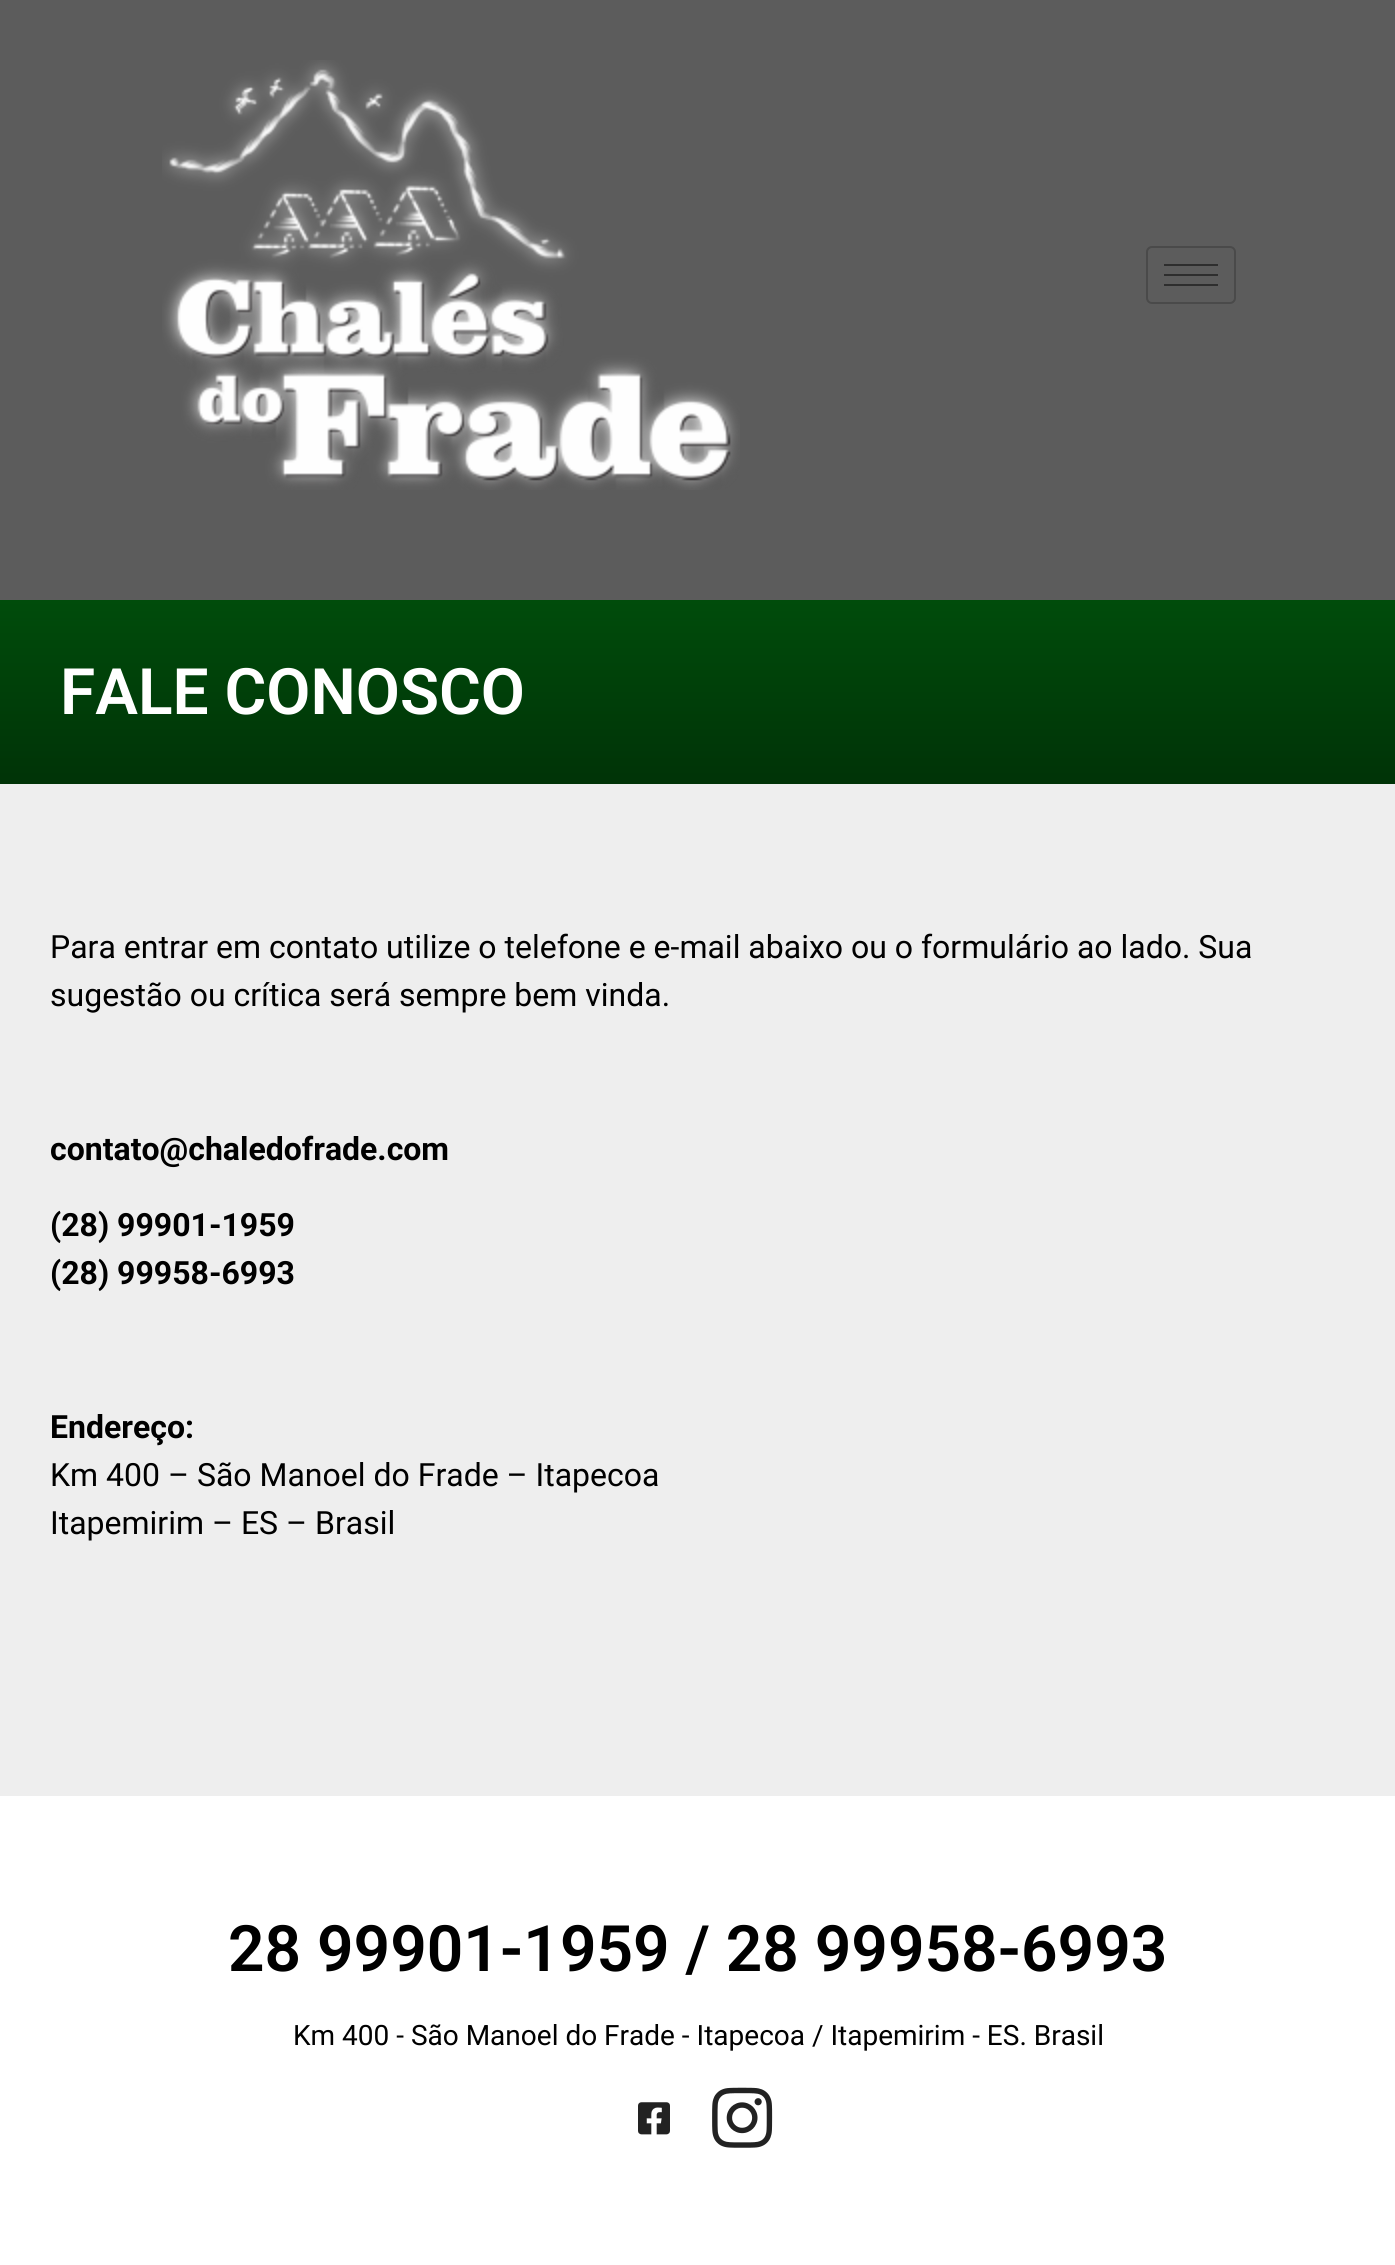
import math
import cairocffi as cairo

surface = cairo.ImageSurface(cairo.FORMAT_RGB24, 1395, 2265)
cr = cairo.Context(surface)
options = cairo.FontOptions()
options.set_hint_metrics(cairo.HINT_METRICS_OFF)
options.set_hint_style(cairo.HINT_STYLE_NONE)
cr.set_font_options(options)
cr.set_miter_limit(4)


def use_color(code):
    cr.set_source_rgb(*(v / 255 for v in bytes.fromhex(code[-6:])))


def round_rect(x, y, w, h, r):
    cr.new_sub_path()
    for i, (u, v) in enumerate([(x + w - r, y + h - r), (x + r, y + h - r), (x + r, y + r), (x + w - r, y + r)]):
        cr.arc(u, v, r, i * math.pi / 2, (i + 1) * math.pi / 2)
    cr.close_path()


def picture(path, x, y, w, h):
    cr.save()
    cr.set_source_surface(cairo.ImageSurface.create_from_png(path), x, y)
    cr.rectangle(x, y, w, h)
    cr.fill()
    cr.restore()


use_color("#ffffff")
cr.paint()
use_color("#5c5c5c")
cr.rectangle(0, 0, 1395, 600)
cr.fill()
picture("img1.png", 162, 60, 578, 430)
round_rect(1147, 247, 88, 56, 5)
use_color("#4a4a4a")
cr.stroke()
use_color("#2e2e2e")
cr.rectangle(1164, 264, 54, 2)
cr.fill()
cr.rectangle(1164, 274, 54, 2)
cr.fill()
cr.rectangle(1164, 284, 54, 2)
cr.fill()
gradient = cairo.LinearGradient(698, 600, 698, 784)
gradient.add_color_stop_rgba(0, 0, 0.298, 0.043, 1)
gradient.add_color_stop_rgba(1, 0, 0.2, 0.027, 1)
cr.set_source(gradient)
cr.rectangle(0, 600, 1395, 184)
cr.fill()
cr.select_font_face("Roboto SemiBold")
cr.set_font_size(64)
use_color("#ffffff")
cr.move_to(60, 714)
cr.show_text("FALE CONOSCO")
use_color("#eeeeee")
cr.rectangle(0, 784, 1395, 1012)
cr.fill()
cr.select_font_face("Roboto")
cr.set_font_size(32)
use_color("#000000")
cr.move_to(50, 958)
cr.show_text("Para entrar em contato utilize o telefone e e-mail abaixo ou o formulário ao lado. Sua")
cr.move_to(50, 1006)
cr.show_text("sugestão ou crítica será sempre bem vinda.")
cr.select_font_face("Roboto", cairo.FONT_SLANT_NORMAL, cairo.FONT_WEIGHT_BOLD)
cr.move_to(50, 1160)
cr.show_text("contato@chaledofrade.com")
cr.move_to(50, 1236)
cr.show_text("(28) 99901-1959")
cr.move_to(50, 1284)
cr.show_text("(28) 99958-6993")
cr.move_to(50, 1438)
cr.show_text("Endereço:")
cr.select_font_face("Roboto")
cr.move_to(50, 1486)
cr.show_text("Km 400 – São Manoel do Frade – Itapecoa")
cr.move_to(50, 1534)
cr.show_text("Itapemirim – ES – Brasil")
cr.select_font_face("Roboto SemiBold")
cr.set_font_size(64)
cr.move_to(228, 1971)
cr.show_text("28 99901-1959 / 28 99958-6993")
cr.select_font_face("Roboto")
cr.set_font_size(28)
cr.move_to(293, 2045)
cr.show_text("Km 400 - São Manoel do Frade - Itapecoa / Itapemirim - ES. Brasil")
picture("img2.png", 638, 2102, 32, 33)
picture("img3.png", 712, 2087, 61, 61)
surface.write_to_png("result.png")
